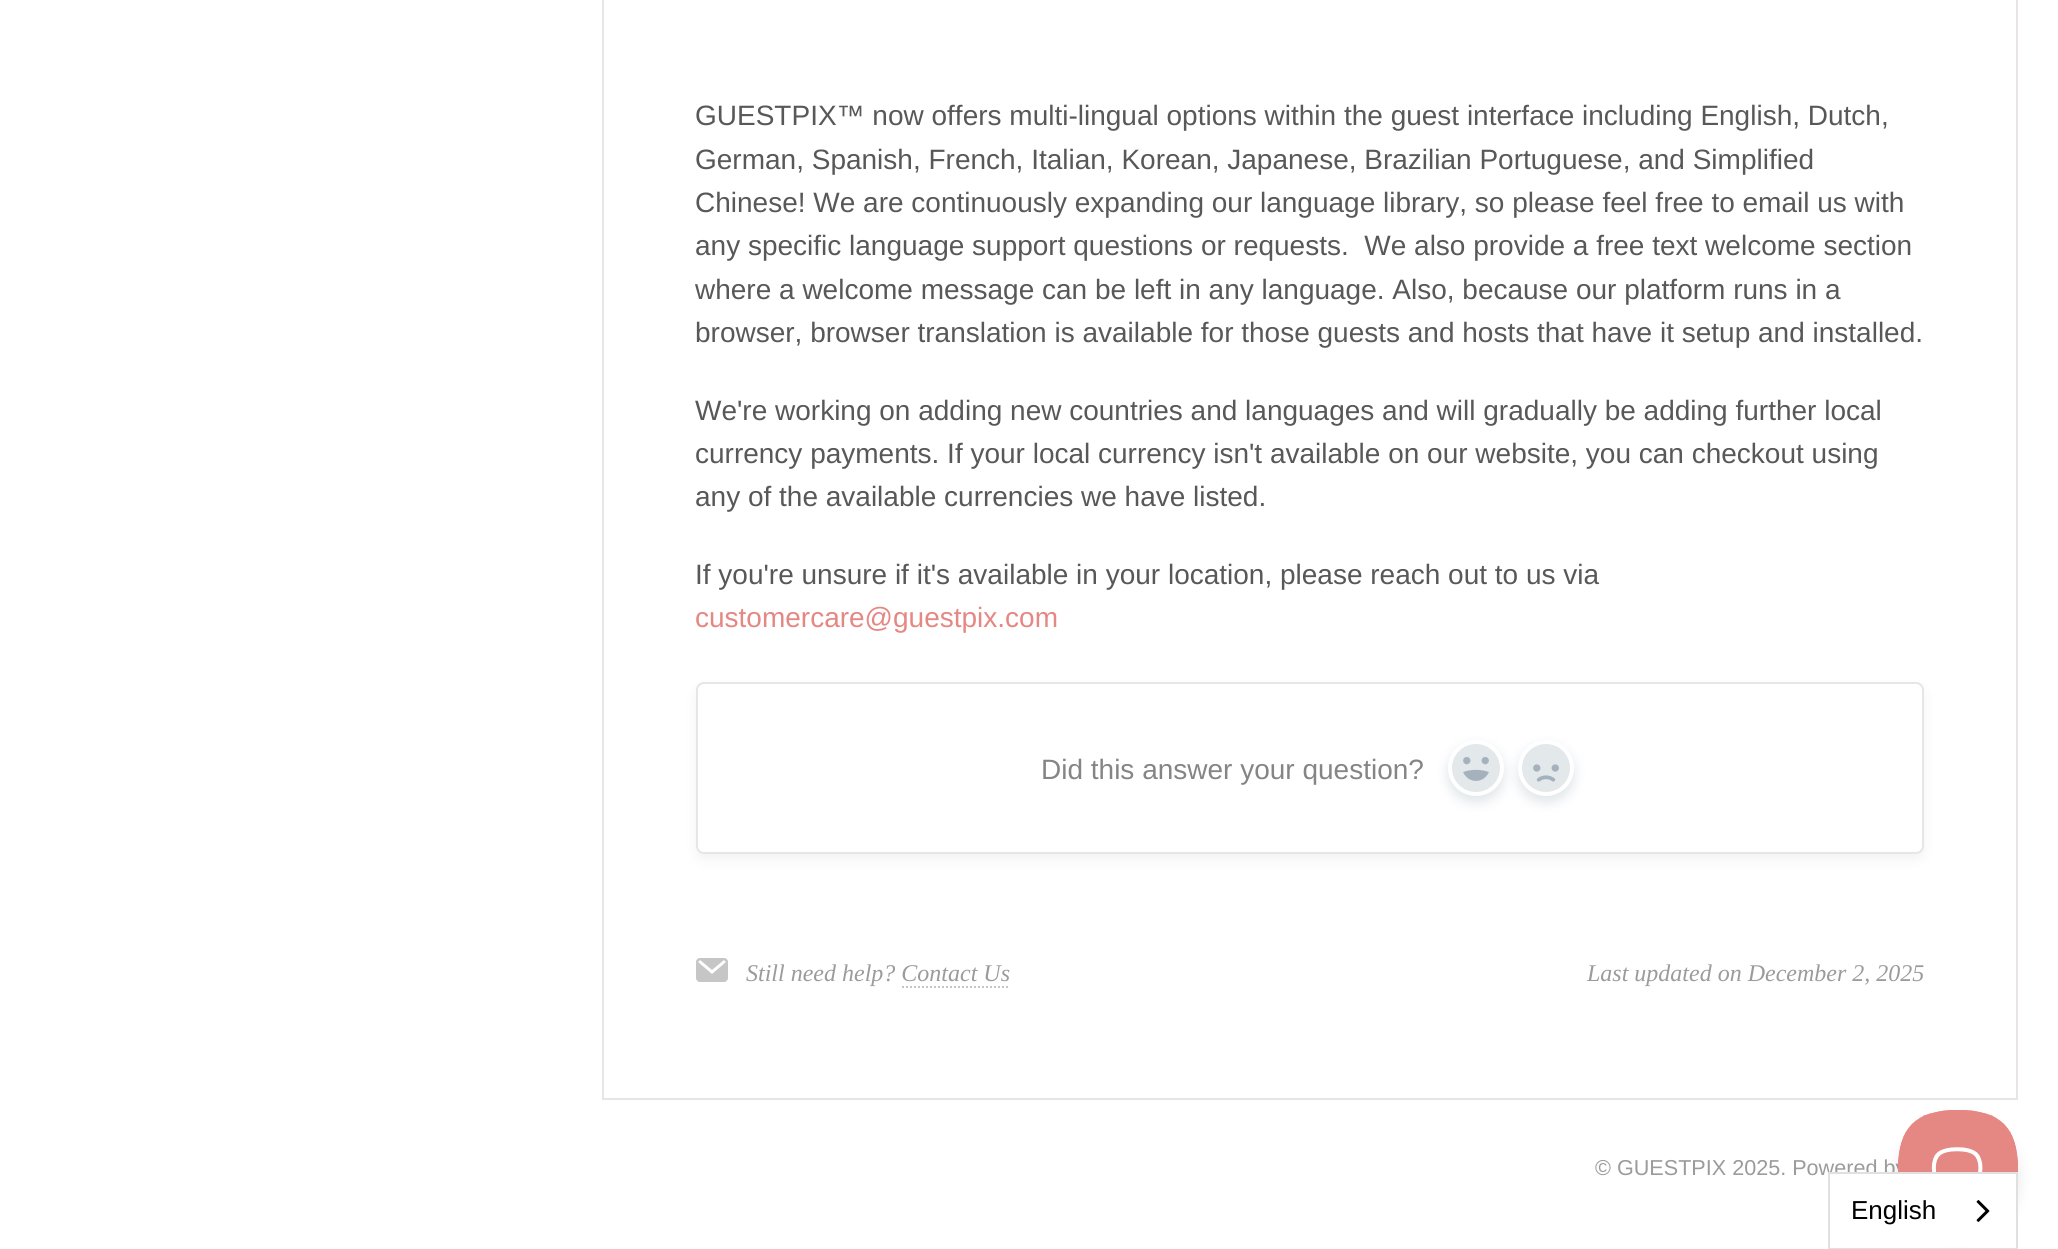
import math
import cairocffi as cairo

surface = cairo.ImageSurface(cairo.FORMAT_RGB24, 2058, 1249)
cr = cairo.Context(surface)
options = cairo.FontOptions()
options.set_hint_metrics(cairo.HINT_METRICS_OFF)
options.set_hint_style(cairo.HINT_STYLE_NONE)
cr.set_font_options(options)
cr.set_miter_limit(4)


def use_color(code):
    cr.set_source_rgb(*(v / 255 for v in bytes.fromhex(code[-6:])))


def round_rect(x, y, w, h, r):
    cr.new_sub_path()
    for i, (u, v) in enumerate([(x + w - r, y + h - r), (x + r, y + h - r), (x + r, y + r), (x + w - r, y + r)]):
        cr.arc(u, v, r, i * math.pi / 2, (i + 1) * math.pi / 2)
    cr.close_path()


def shadow(x, y, w, h, r, blur, alpha):
    cr.push_group_with_content(cairo.CONTENT_ALPHA)
    cr.set_operator(cairo.OPERATOR_SOURCE)
    for i in range(15, -16, -2):
        e = blur * i / 6
        if min(w, h) + 2 * e > 0:
            cr.set_source_rgba(0, 0, 0, alpha * math.erfc((i - 1) / 8.5) / 2)
            round_rect(x - e, y - e, w + 2 * e, h + 2 * e, max(0, min(r + e + blur * .6, min(w, h) / 2 + e)))
            cr.fill()
    cr.mask(cr.pop_group())


def picture(path, x, y, w, h):
    cr.save()
    cr.set_source_surface(cairo.ImageSurface.create_from_png(path), x, y)
    cr.rectangle(x, y, w, h)
    cr.fill()
    cr.restore()


use_color("#ffffff")
cr.paint()
cr.rectangle(603, -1, 1414, 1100)
use_color("#e9e5e5")
cr.stroke()
cr.select_font_face("Liberation Sans")
cr.set_font_size(28)
use_color("#585858")
cr.move_to(695, 125)
cr.show_text("GUESTPIX™ now offers multi-lingual options within the guest interface including English, Dutch,")
cr.move_to(695, 169)
cr.show_text("German, Spanish, French, Italian, Korean, Japanese, Brazilian Portuguese, and Simplified")
cr.move_to(695, 212)
cr.show_text("Chinese! We are continuously expanding our language library, so please feel free to email us with")
cr.move_to(695, 255)
cr.show_text("any specific language support questions or requests.  We also provide a free text welcome section")
cr.move_to(695, 299)
cr.show_text("where a welcome message can be left in any language. Also, because our platform runs in a")
cr.move_to(695, 342)
cr.show_text("browser, browser translation is available for those guests and hosts that have it setup and installed.")
cr.move_to(695, 420)
cr.show_text("We're working on adding new countries and languages and will gradually be adding further local")
cr.move_to(695, 463)
cr.show_text("currency payments. If your local currency isn't available on our website, you can checkout using")
cr.move_to(695, 506)
cr.show_text("any of the available currencies we have listed.")
cr.move_to(695, 584)
cr.show_text("If you're unsure if it's available in your location, please reach out to us via")
use_color("#e58783")
cr.move_to(695, 627)
cr.show_text("customercare@guestpix.com")
use_color("#000000")
shadow(696, 688, 1228, 172, 8, 6, 0.05)
use_color("#ffffff")
round_rect(697, 683, 1226, 170, 7)
cr.fill_preserve()
use_color("#e9e5e5")
cr.stroke()
use_color("#858585")
cr.move_to(1041, 779)
cr.show_text("Did this answer your question?")
use_color("#c1cbd4")
shadow(1448, 746, 56, 56, 28, 6, 0.5)
use_color("#e3e8eb")
cr.arc(1476, 768, 26, 0, 2 * math.pi)
cr.fill_preserve()
use_color("#ffffff")
cr.set_line_width(4)
cr.stroke()
picture("img1.png", 1463, 757, 26, 24)
use_color("#c1cbd4")
shadow(1518, 746, 56, 56, 28, 6, 0.5)
use_color("#e3e8eb")
cr.arc(1546, 768, 26, 0, 2 * math.pi)
cr.fill_preserve()
use_color("#ffffff")
cr.stroke()
picture("img2.png", 1533, 764, 26, 18)
picture("img3.png", 696, 958, 32, 24)
cr.select_font_face("Liberation Serif", cairo.FONT_SLANT_ITALIC)
cr.set_font_size(24)
use_color("#9b9b9b")
cr.move_to(746, 981)
cr.show_text("Still need help? Contact Us")
cr.new_path()
cr.move_to(902, 987)
cr.line_to(1010, 987)
use_color("#c5c5c5")
cr.set_line_width(2)
cr.set_dash([2, 2])
cr.stroke()
use_color("#9b9b9b")
cr.move_to(1587, 981)
cr.show_text("Last updated on December 2, 2025")
cr.select_font_face("Liberation Sans")
cr.set_font_size(21.6)
cr.move_to(1595, 1175)
cr.show_text("© GUESTPIX 2025. Powered by")
use_color("#000000")
shadow(1898, 1118, 120, 120, 60, 7, 0.1)
picture("img4.png", 1898, 1110, 120, 62)
use_color("#ffffff")
cr.rectangle(1830, 1174, 186, 73)
cr.fill()
cr.rectangle(1829, 1173, 188, 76)
use_color("#e0e0e0")
cr.set_dash([])
cr.stroke()
cr.set_font_size(26)
use_color("#000000")
cr.move_to(1851, 1219)
cr.show_text("English")
picture("img5.png", 1976, 1200, 14, 22)
surface.write_to_png("result.png")
